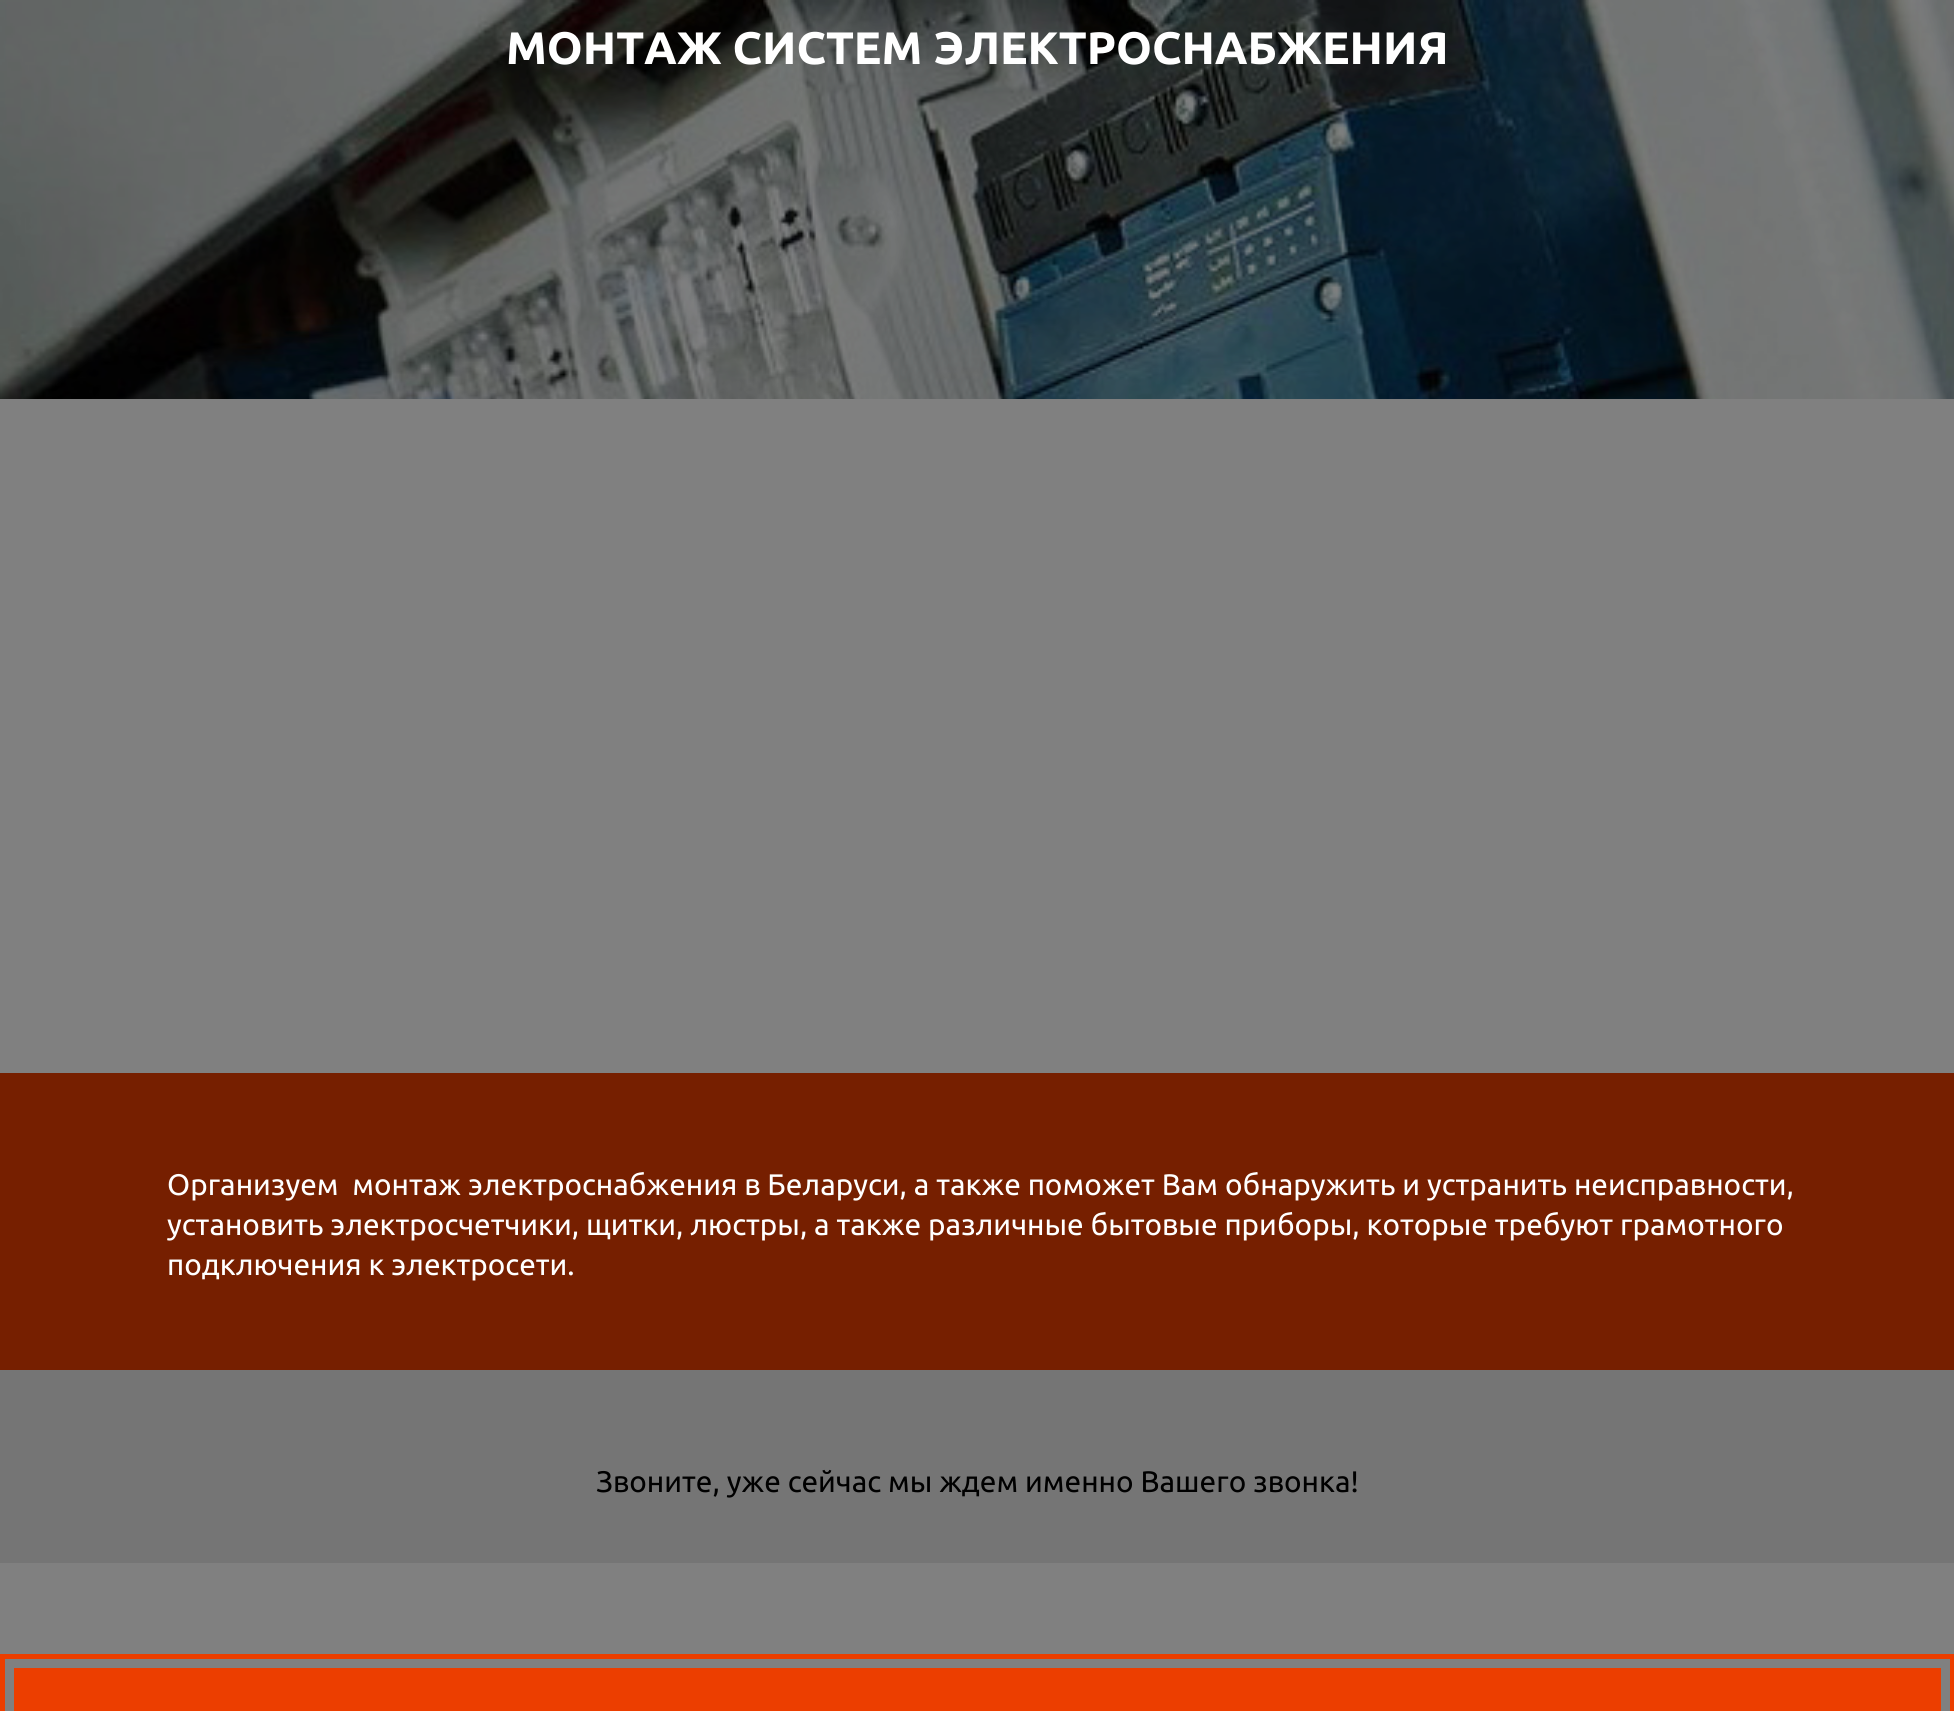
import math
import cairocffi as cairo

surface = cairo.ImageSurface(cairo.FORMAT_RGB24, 1954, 1711)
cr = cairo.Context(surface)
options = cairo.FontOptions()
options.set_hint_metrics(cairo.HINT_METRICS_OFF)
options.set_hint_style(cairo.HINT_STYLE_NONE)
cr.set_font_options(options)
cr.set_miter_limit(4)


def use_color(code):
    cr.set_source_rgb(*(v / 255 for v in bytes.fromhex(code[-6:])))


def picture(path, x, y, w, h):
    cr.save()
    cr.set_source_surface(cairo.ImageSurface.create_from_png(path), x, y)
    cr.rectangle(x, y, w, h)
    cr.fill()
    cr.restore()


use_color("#808080")
cr.paint()
picture("img1.png", 0, 0, 1954, 399)
cr.select_font_face("Ubuntu", cairo.FONT_SLANT_NORMAL, cairo.FONT_WEIGHT_BOLD)
cr.set_font_size(45.5)
use_color("#ffffff")
cr.move_to(506, 64)
cr.show_text("МОНТАЖ СИСТЕМ ЭЛЕКТРОСНАБЖЕНИЯ")
use_color("#761f00")
cr.rectangle(0, 1073, 1954, 297)
cr.fill()
cr.select_font_face("Ubuntu")
cr.set_font_size(29.75)
use_color("#ffffff")
cr.move_to(167, 1195)
cr.show_text("Организуем  монтаж электроснабжения в Беларуси, а также поможет Вам обнаружить и устранить неисправности,")
cr.move_to(167, 1235)
cr.show_text("установить электросчетчики, щитки, люстры, а также различные бытовые приборы, которые требуют грамотного")
cr.move_to(167, 1275)
cr.show_text("подключения к электросети.")
use_color("#757575")
cr.rectangle(0, 1370, 1954, 193)
cr.fill()
use_color("#000000")
cr.move_to(596, 1492)
cr.show_text("Звоните, уже сейчас мы ждем именно Вашего звонка!")
cr.rectangle(2.5, 1656.5, 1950, 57)
use_color("#ec3e00")
cr.set_line_width(5)
cr.stroke()
cr.rectangle(14, 1668, 1927, 43)
cr.fill()
surface.write_to_png("result.png")
